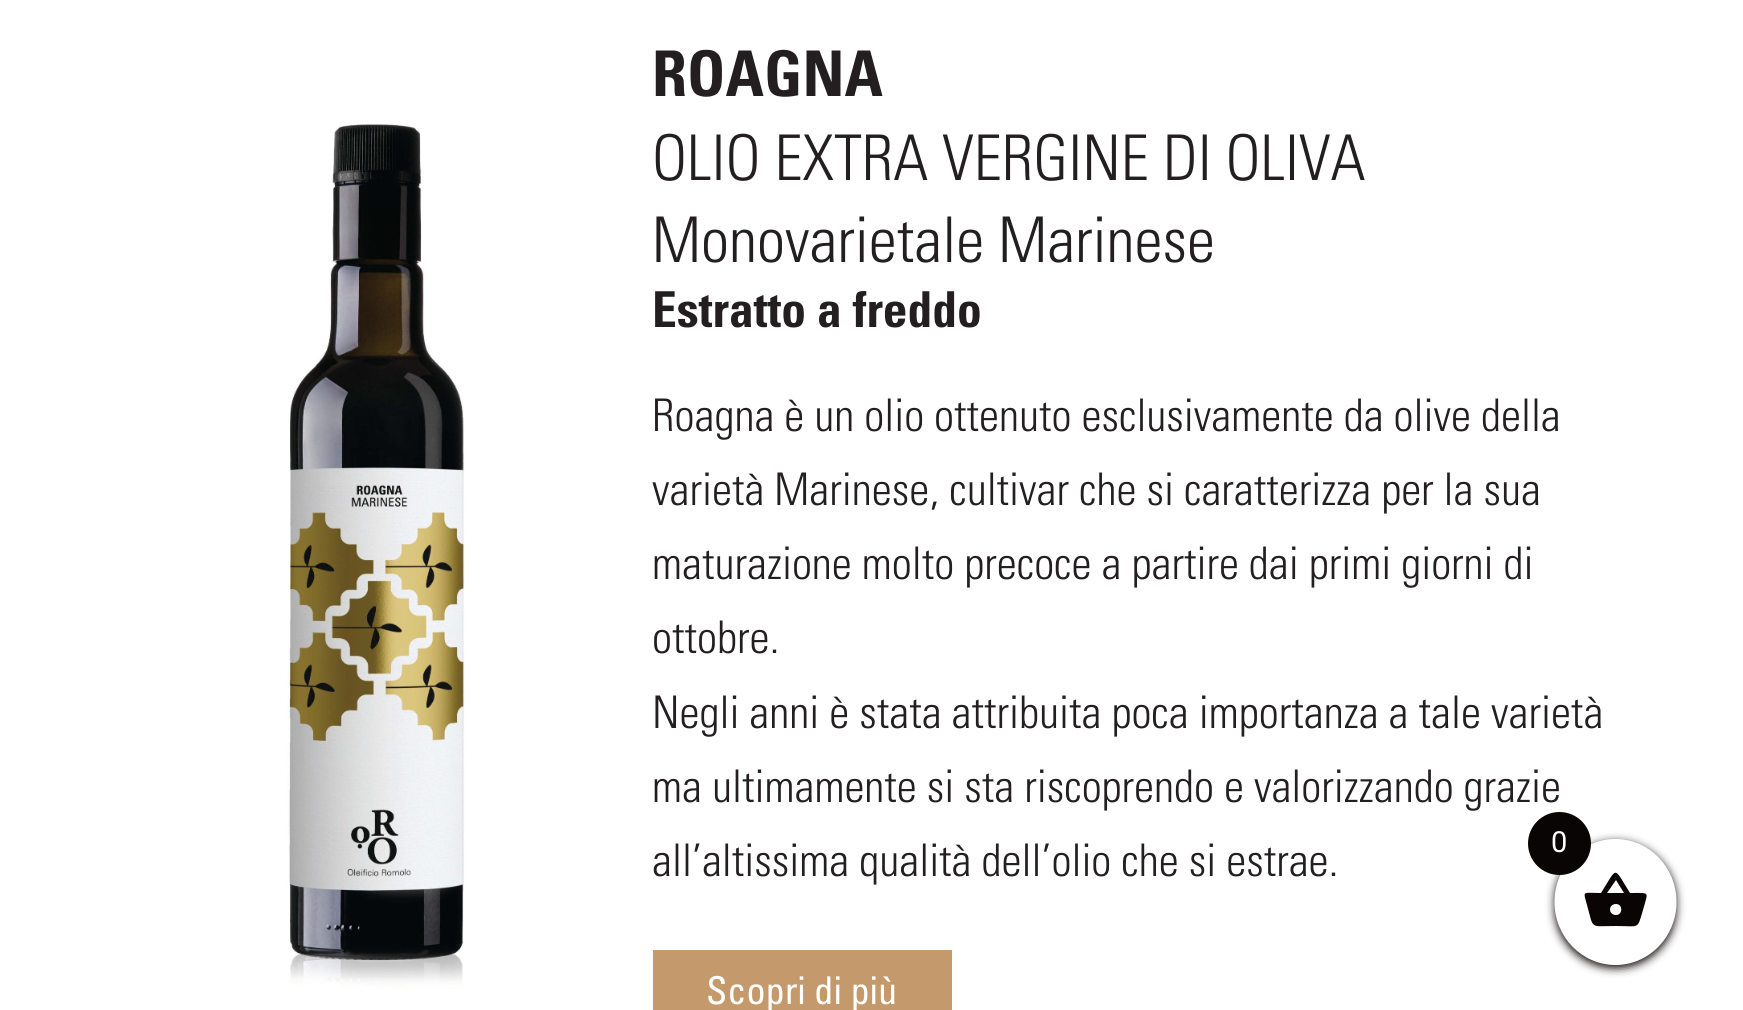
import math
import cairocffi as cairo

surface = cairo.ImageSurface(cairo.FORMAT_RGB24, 1743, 1010)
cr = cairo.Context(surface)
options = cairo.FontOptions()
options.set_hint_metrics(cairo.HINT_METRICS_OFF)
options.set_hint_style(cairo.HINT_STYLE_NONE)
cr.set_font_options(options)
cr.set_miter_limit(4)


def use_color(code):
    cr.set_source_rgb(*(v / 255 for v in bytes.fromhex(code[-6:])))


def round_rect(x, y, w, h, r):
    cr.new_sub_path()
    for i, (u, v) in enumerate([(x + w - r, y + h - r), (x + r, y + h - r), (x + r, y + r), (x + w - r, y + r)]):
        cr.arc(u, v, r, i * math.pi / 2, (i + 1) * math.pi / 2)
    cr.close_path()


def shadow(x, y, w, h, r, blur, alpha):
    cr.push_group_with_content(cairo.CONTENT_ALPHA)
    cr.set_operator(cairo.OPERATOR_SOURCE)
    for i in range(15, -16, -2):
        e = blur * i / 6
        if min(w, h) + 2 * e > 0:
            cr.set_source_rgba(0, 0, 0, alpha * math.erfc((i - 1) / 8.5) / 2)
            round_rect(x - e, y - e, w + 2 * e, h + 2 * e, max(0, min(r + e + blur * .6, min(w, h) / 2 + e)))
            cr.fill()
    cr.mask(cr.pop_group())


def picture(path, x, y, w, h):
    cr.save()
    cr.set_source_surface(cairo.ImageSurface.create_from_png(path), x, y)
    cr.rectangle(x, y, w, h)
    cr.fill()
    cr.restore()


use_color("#ffffff")
cr.paint()
picture("img1.png", 287, 124, 179, 865)
cr.select_font_face("Univers", cairo.FONT_SLANT_NORMAL, cairo.FONT_WEIGHT_BOLD)
cr.set_font_size(63)
use_color("#231f20")
cr.move_to(652, 96)
cr.show_text("ROAGNA")
cr.select_font_face("Univers Light")
cr.move_to(652, 180)
cr.show_text("OLIO EXTRA VERGINE DI OLIVA")
cr.move_to(652, 262)
cr.show_text("Monovarietale Marinese")
cr.select_font_face("Univers", cairo.FONT_SLANT_NORMAL, cairo.FONT_WEIGHT_BOLD)
cr.set_font_size(49.5)
cr.move_to(652, 327)
cr.show_text("Estratto a freddo")
cr.select_font_face("Univers Light")
cr.set_font_size(45)
cr.move_to(652, 431)
cr.show_text("Roagna è un olio ottenuto esclusivamente da olive della")
cr.move_to(652, 505)
cr.show_text("varietà Marinese, cultivar che si caratterizza per la sua")
cr.move_to(652, 579)
cr.show_text("maturazione molto precoce a partire dai primi giorni di")
cr.move_to(652, 653)
cr.show_text("ottobre.")
cr.move_to(652, 728)
cr.show_text("Negli anni è stata attribuita poca importanza a tale varietà")
cr.move_to(652, 802)
cr.show_text("ma ultimamente si sta riscoprendo e valorizzando grazie")
cr.move_to(652, 876)
cr.show_text("all’altissima qualità dell’olio che si estrae.")
use_color("#c49a6c")
cr.rectangle(653, 950, 299, 60)
cr.fill()
cr.select_font_face("Univers")
cr.set_font_size(38.25)
use_color("#ffffff")
cr.move_to(706, 1004)
cr.show_text("Scopri di più")
use_color("#0a0404")
shadow(1555, 842, 121, 126, 60.5, 4.5, 1)
use_color("#ffffff")
cr.new_path()
cr.move_to(1615.5, 839)
cr.curve_to(1649, 839, 1676.5, 867, 1676.5, 902)
cr.curve_to(1676.5, 937, 1649, 965, 1615.5, 965)
cr.curve_to(1582, 965, 1554.5, 937, 1554.5, 902)
cr.curve_to(1554.5, 867, 1582, 839, 1615.5, 839)
cr.close_path()
cr.fill()
use_color("#0a0505")
cr.arc(1559.5, 843.5, 31.5, 0, 2 * math.pi)
cr.fill()
cr.select_font_face("Roboto")
cr.set_font_size(29)
use_color("#ffffff")
cr.move_to(1551, 852)
cr.show_text("0")
use_color("#0a0404")
cr.new_path()
cr.move_to(1616, 915)
cr.curve_to(1623, 915, 1623, 904, 1616, 904)
cr.curve_to(1608, 904, 1608, 915, 1616, 915)
cr.close_path()
cr.move_to(1607, 893)
cr.line_to(1624, 893)
cr.line_to(1616, 880)
cr.close_path()
cr.move_to(1630, 893)
cr.curve_to(1651, 893, 1648, 891, 1643, 910)
cr.curve_to(1637, 930, 1640, 926, 1616, 926)
cr.curve_to(1589, 926, 1594, 930, 1587, 905)
cr.curve_to(1583, 890, 1582, 893, 1601, 893)
cr.curve_to(1618, 866, 1613, 866, 1630, 893)
cr.close_path()
cr.fill()
surface.write_to_png("result.png")
